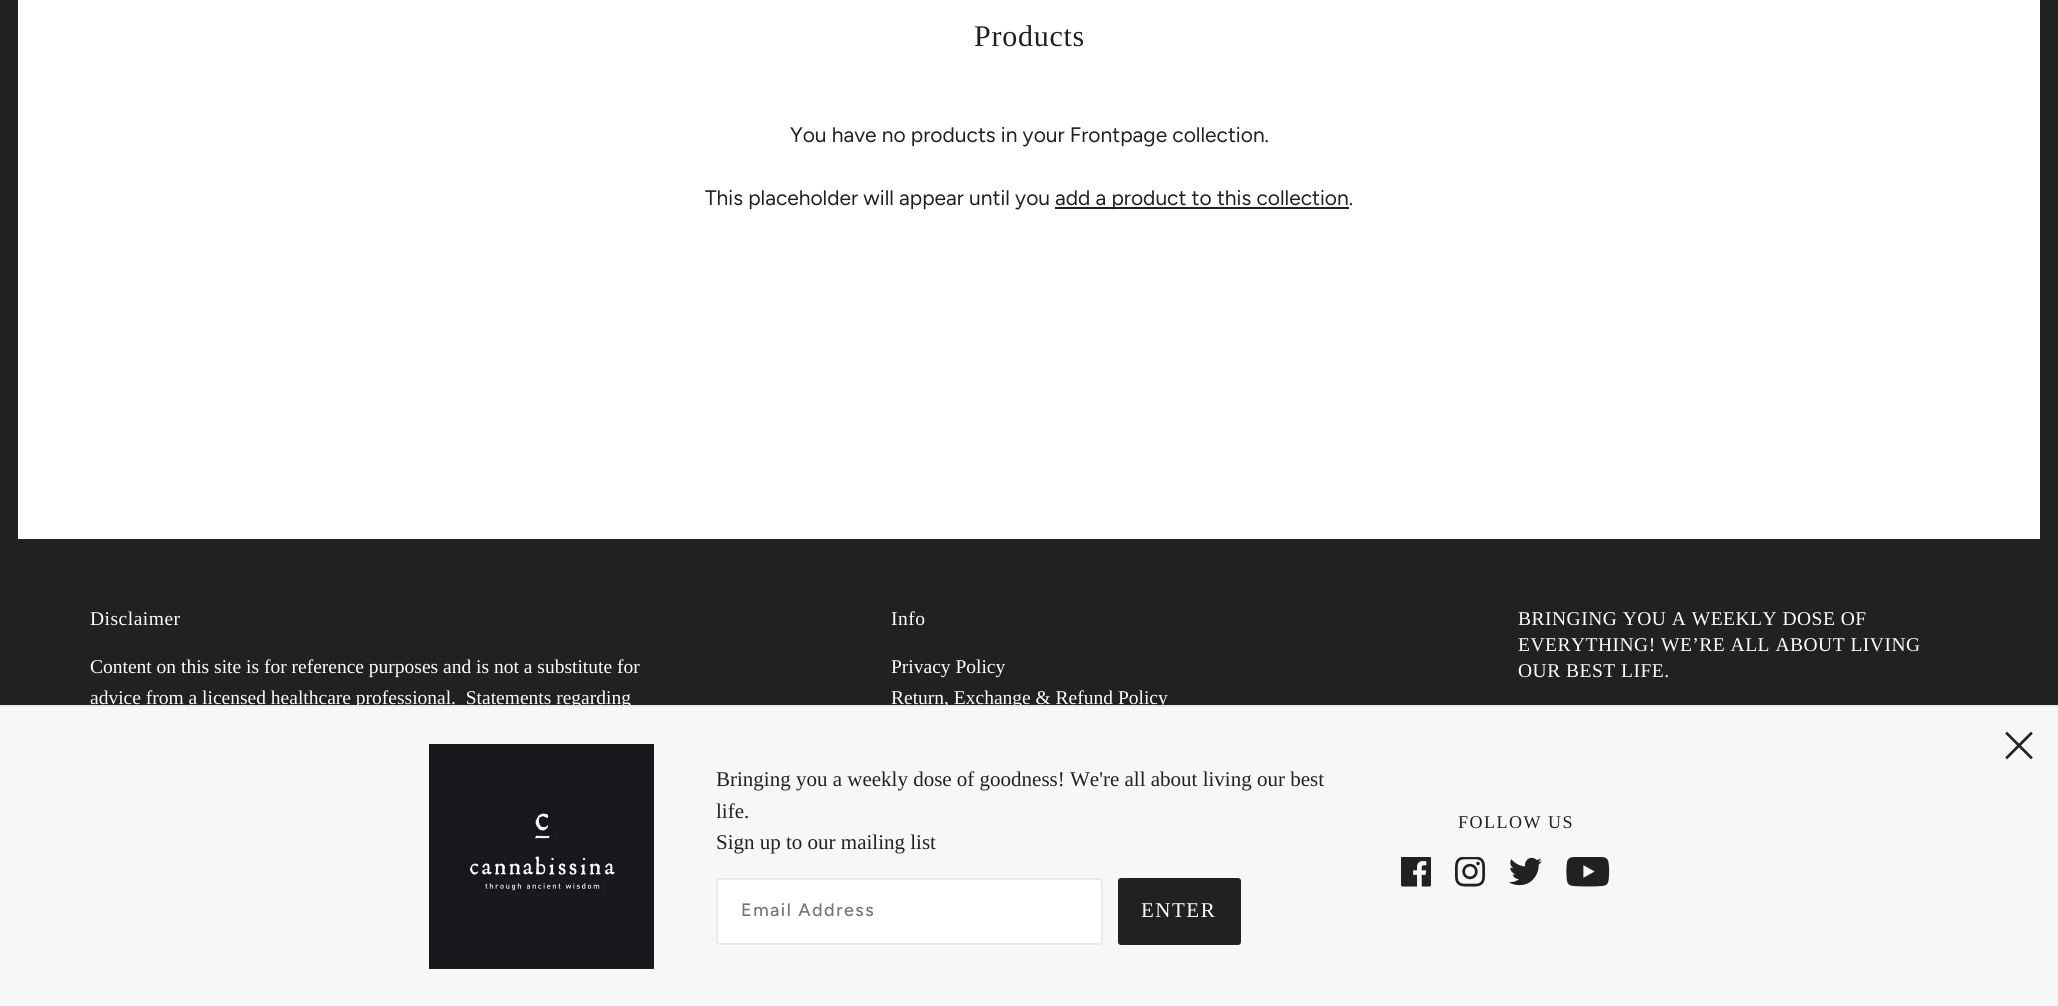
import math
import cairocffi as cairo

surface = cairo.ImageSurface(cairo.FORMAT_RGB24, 2058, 1006)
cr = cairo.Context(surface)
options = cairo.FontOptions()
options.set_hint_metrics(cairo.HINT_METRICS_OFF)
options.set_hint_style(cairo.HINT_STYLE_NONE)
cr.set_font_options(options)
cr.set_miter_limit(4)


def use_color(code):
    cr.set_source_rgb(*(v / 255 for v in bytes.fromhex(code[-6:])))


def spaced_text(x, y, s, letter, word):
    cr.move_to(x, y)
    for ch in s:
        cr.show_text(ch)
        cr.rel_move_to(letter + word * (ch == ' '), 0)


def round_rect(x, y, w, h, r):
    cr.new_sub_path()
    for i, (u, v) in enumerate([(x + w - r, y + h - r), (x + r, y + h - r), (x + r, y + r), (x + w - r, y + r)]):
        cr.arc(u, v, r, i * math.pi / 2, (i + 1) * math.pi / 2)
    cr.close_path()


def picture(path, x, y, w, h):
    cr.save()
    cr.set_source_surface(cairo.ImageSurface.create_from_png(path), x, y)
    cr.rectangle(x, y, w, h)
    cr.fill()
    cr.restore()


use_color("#ffffff")
cr.paint()
cr.rectangle(9, -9, 2040, 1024)
use_color("#212121")
cr.set_line_width(18)
cr.stroke()
cr.select_font_face("Liberation Serif")
cr.set_font_size(30)
spaced_text(974, 46, "Products", 0.75, 0)
cr.select_font_face("Figtree")
cr.set_font_size(21)
cr.move_to(790, 142)
cr.show_text("You have no products in your Frontpage collection.")
cr.move_to(705, 205)
cr.show_text("This placeholder will appear until you")
cr.rectangle(1055, 207, 294, 2)
cr.fill()
cr.move_to(1055, 205)
cr.show_text("add a product to this collection.")
cr.rectangle(18, 539, 2022, 166)
cr.fill()
cr.select_font_face("Liberation Serif")
cr.set_font_size(19.5)
use_color("#ffffff")
spaced_text(90, 625, "Disclaimer", 0.5, 0)
cr.move_to(90, 673)
cr.show_text("Content on this site is for reference purposes and is not a substitute for")
cr.move_to(90, 704)
cr.show_text("advice from a licensed healthcare professional.  Statements regarding")
spaced_text(891, 625, "Info", 0.5, 0)
cr.move_to(891, 673)
cr.show_text("Privacy Policy")
cr.move_to(891, 704)
cr.show_text("Return, Exchange & Refund Policy")
spaced_text(1518, 625, "BRINGING YOU A WEEKLY DOSE OF", 0.5, 0)
spaced_text(1518, 651, "EVERYTHING! WE’RE ALL ABOUT LIVING", 0.5, 0)
spaced_text(1518, 677, "OUR BEST LIFE.", 0.5, 0)
use_color("#f7f7f7")
cr.rectangle(0, 707, 2058, 299)
cr.fill()
use_color("#eaeaea")
cr.rectangle(0, 705, 2058, 2)
cr.fill()
picture("img1.png", 429, 744, 225, 225)
cr.set_font_size(21)
use_color("#212121")
cr.move_to(716, 786)
cr.show_text("Bringing you a weekly dose of goodness! We're all about living our best")
cr.move_to(716, 818)
cr.show_text("life.")
cr.move_to(716, 849)
cr.show_text("Sign up to our mailing list")
use_color("#ffffff")
round_rect(717, 879, 385, 65, 2)
cr.fill_preserve()
use_color("#eaeaea")
cr.set_line_width(2)
cr.stroke()
cr.select_font_face("Figtree Medium")
cr.set_font_size(18)
use_color("#757575")
spaced_text(741, 916, "Email Address", 1.5, 0)
use_color("#212121")
round_rect(1118, 878, 123, 67, 3)
cr.fill()
cr.select_font_face("Liberation Serif")
cr.set_font_size(21)
use_color("#ffffff")
spaced_text(1141, 917, "ENTER", 1.5, 0)
cr.set_font_size(18)
use_color("#212121")
spaced_text(1458, 828, "FOLLOW US", 1.5, 0)
picture("img2.png", 1401, 857, 30, 30)
picture("img3.png", 1455, 857, 30, 30)
picture("img4.png", 1509, 857, 33, 29)
picture("img5.png", 1566, 857, 44, 30)
picture("img6.png", 2005, 731, 28, 29)
surface.write_to_png("result.png")
